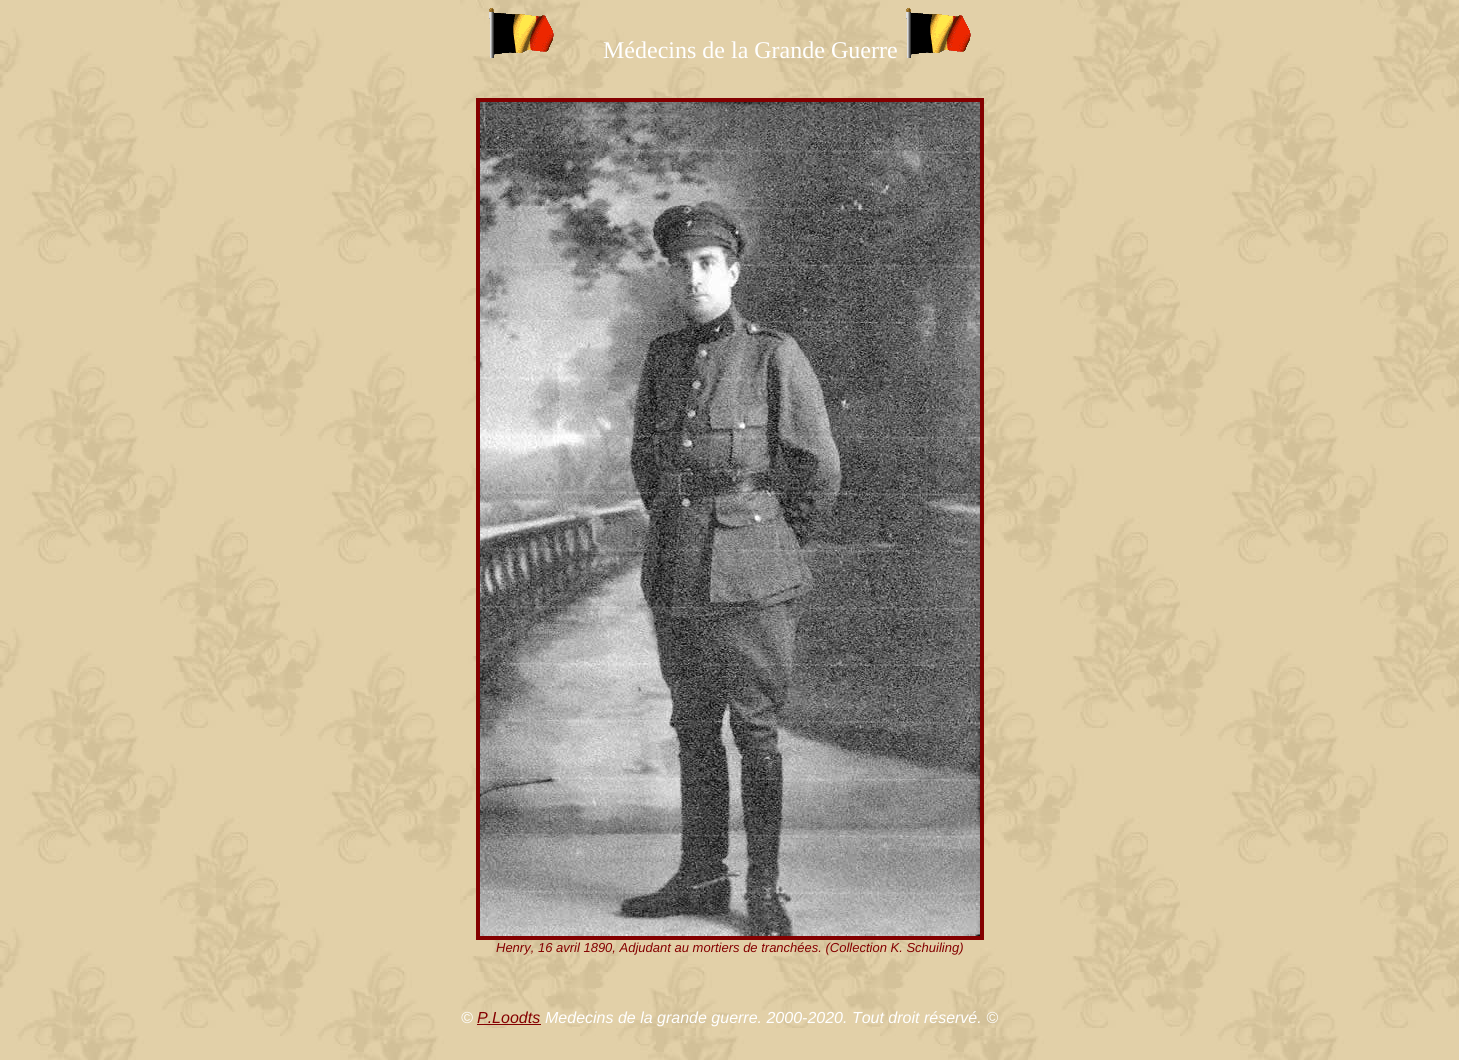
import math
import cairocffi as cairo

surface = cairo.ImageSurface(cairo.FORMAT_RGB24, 1459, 1060)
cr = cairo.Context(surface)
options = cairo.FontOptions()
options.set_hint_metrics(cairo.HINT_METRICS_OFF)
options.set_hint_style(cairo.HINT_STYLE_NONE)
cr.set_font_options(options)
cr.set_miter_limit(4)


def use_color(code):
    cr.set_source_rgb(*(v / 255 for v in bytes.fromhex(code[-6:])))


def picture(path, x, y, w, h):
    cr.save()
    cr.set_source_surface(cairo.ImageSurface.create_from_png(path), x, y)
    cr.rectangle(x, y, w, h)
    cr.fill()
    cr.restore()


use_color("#ffffff")
cr.paint()
picture("img1.png", 0, 0, 1459, 1060)
picture("img2.png", 489, 8, 65, 50)
cr.select_font_face("Liberation Serif")
cr.set_font_size(24)
use_color("#ffffff")
cr.move_to(603, 58)
cr.show_text("Médecins de la Grande Guerre")
picture("img3.png", 906, 8, 65, 50)
cr.rectangle(478, 100, 504, 838)
use_color("#840000")
cr.set_line_width(4)
cr.stroke()
picture("img4.png", 480, 102, 500, 834)
cr.select_font_face("Liberation Sans", cairo.FONT_SLANT_ITALIC)
cr.set_font_size(13)
cr.move_to(496, 952)
cr.show_text("Henry, 16 avril 1890, Adjudant au mortiers de tranchées. (Collection K. Schuiling)")
cr.set_font_size(16)
use_color("#ffffff")
cr.move_to(461, 1023)
cr.show_text("©")
use_color("#840000")
cr.move_to(477, 1023)
cr.show_text("P.Loodts")
cr.rectangle(477, 1024, 64, 1)
cr.fill()
use_color("#ffffff")
cr.move_to(545, 1023)
cr.show_text("Medecins de la grande guerre. 2000-2020. Tout droit réservé. ©")
surface.write_to_png("result.png")
